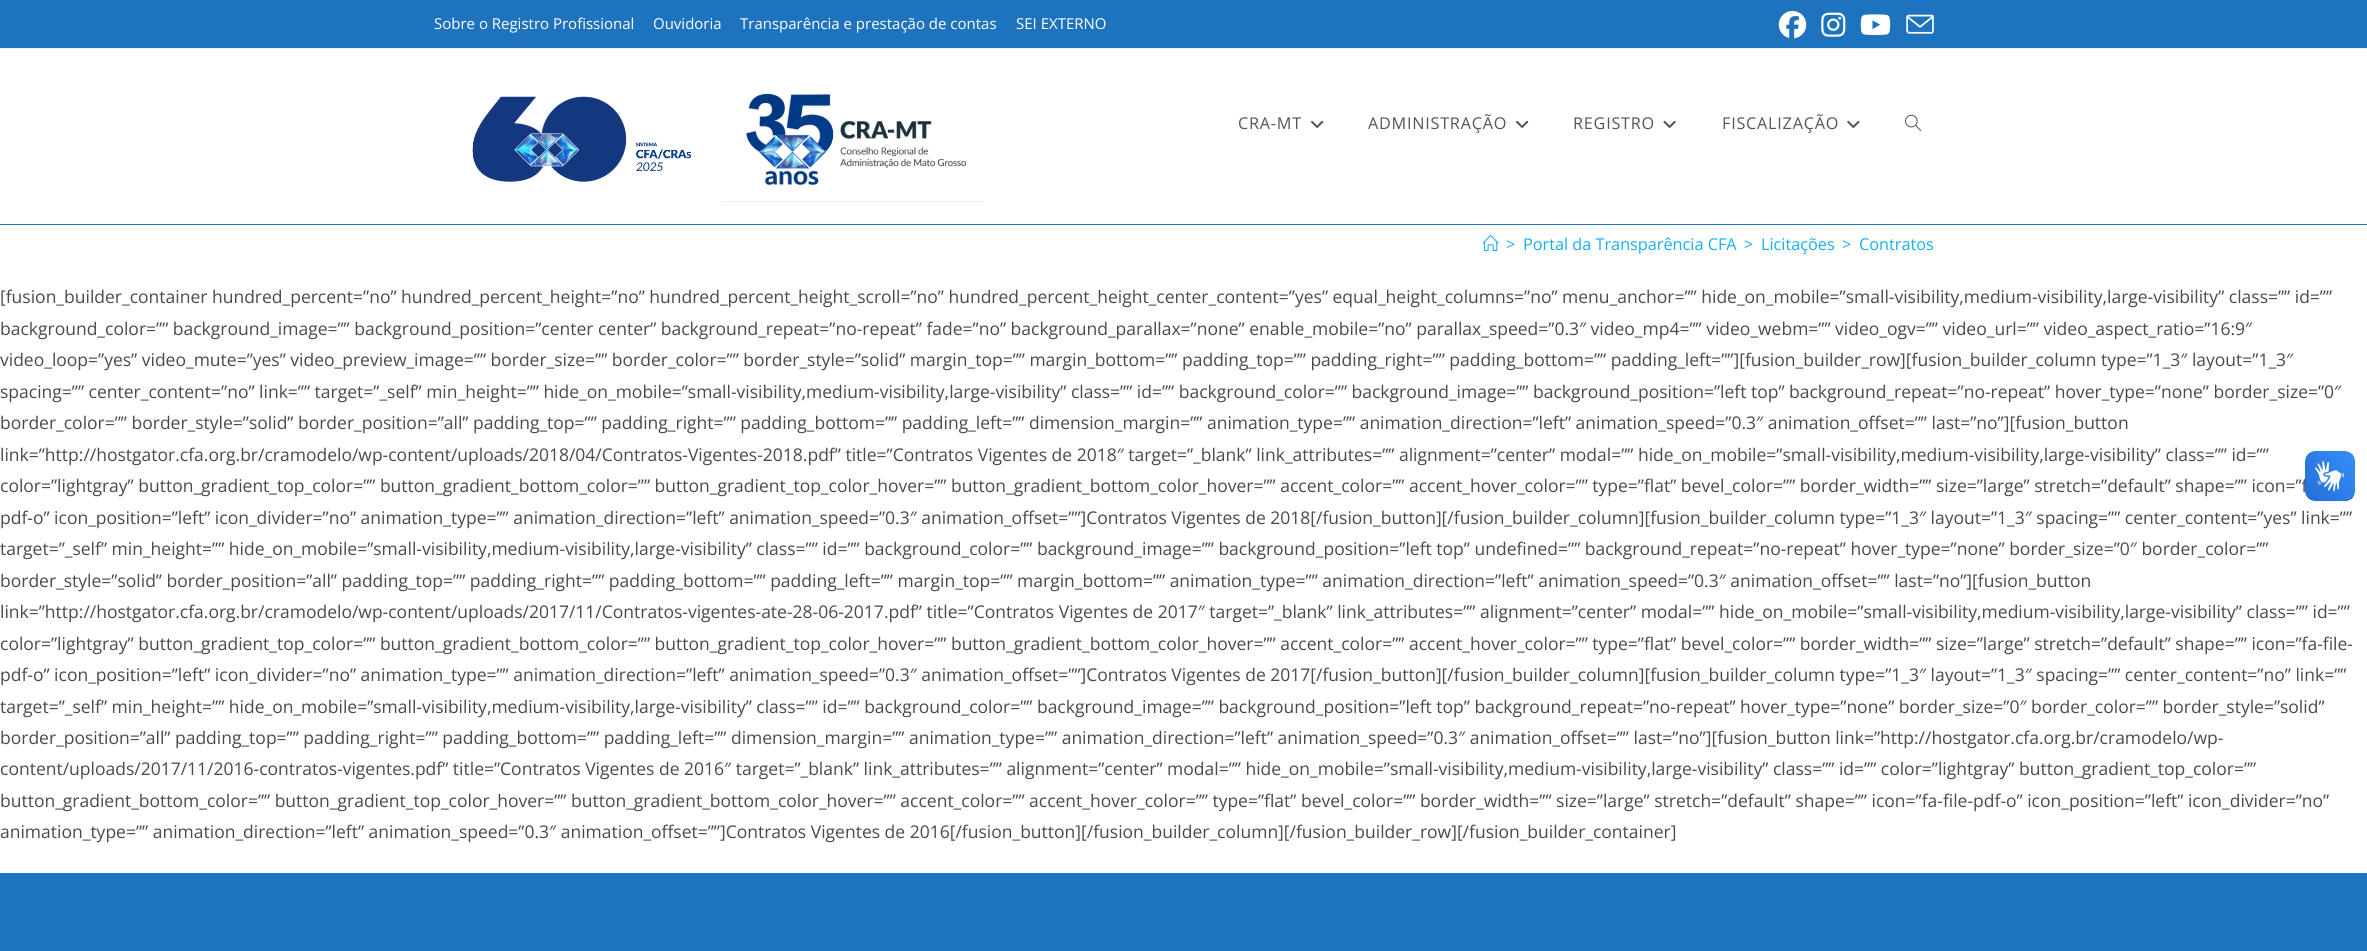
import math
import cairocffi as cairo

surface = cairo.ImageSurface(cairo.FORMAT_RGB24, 2367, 951)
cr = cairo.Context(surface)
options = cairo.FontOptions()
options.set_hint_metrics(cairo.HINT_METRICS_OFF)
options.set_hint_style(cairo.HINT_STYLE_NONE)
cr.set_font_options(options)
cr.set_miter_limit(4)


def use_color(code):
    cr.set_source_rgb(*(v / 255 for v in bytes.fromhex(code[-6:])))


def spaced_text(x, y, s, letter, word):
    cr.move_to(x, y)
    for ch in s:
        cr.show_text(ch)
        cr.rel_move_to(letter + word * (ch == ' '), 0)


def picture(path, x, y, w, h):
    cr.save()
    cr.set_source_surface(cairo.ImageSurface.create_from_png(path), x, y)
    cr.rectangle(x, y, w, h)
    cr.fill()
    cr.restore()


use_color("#ffffff")
cr.paint()
use_color("#1e73be")
cr.rectangle(0, 0, 2367, 48)
cr.fill()
use_color("#f1f1f1")
cr.rectangle(0, 48, 2367, 1)
cr.fill()
cr.select_font_face("Open Sans")
cr.set_font_size(15)
use_color("#ffffff")
cr.move_to(434, 29)
cr.show_text("Sobre o Registro Profissional")
cr.move_to(653, 29)
cr.show_text("Ouvidoria")
cr.move_to(740, 29)
cr.show_text("Transparência e prestação de contas")
cr.move_to(1016, 29)
cr.show_text("SEI EXTERNO")
picture("img1.png", 1778, 10, 29, 29)
picture("img2.png", 1821, 12, 25, 25)
picture("img3.png", 1860, 14, 31, 21)
picture("img4.png", 1906, 14, 28, 20)
use_color("#1e73be")
cr.rectangle(0, 224, 2367, 1)
cr.fill()
picture("img5.png", 472, 93, 512, 109)
cr.set_font_size(16.25)
use_color("#555555")
spaced_text(1238, 129, "CRA-MT", 0.75, 0)
picture("img6.png", 1311, 120, 13, 8)
spaced_text(1368, 129, "ADMINISTRAÇÃO", 0.75, 0)
picture("img6.png", 1516, 120, 13, 8)
spaced_text(1573, 129, "REGISTRO", 0.75, 0)
picture("img7.png", 1663, 120, 13, 8)
spaced_text(1722, 129, "FISCALIZAÇÃO", 0.75, 0)
picture("img8.png", 1847, 120, 13, 8)
picture("img9.png", 1905, 114, 17, 17)
picture("img10.png", 1483, 234, 16, 17)
use_color("#13aff0")
cr.move_to(1506, 250)
cr.show_text(">")
cr.move_to(1523, 250)
cr.show_text("Portal da Transparência CFA")
cr.move_to(1744, 250)
cr.show_text(">")
cr.move_to(1761, 250)
cr.show_text("Licitações")
cr.move_to(1842, 250)
cr.show_text(">")
cr.move_to(1859, 250)
cr.show_text("Contratos")
cr.set_font_size(17.5)
use_color("#4a4a4a")
cr.move_to(0, 303)
cr.show_text("[fusion_builder_container hundred_percent=”no” hundred_percent_height=”no” hundred_percent_height_scroll=”no” hundred_percent_height_center_content=”yes” equal_height_columns=”no” menu_anchor=”” hide_on_mobile=”small-visibility,medium-visibility,large-visibility” class=”” id=””")
cr.move_to(0, 335)
cr.show_text("background_color=”” background_image=”” background_position=”center center” background_repeat=”no-repeat” fade=”no” background_parallax=”none” enable_mobile=”no” parallax_speed=”0.3″ video_mp4=”” video_webm=”” video_ogv=”” video_url=”” video_aspect_ratio=”16:9″")
cr.move_to(0, 366)
cr.show_text("video_loop=”yes” video_mute=”yes” video_preview_image=”” border_size=”” border_color=”” border_style=”solid” margin_top=”” margin_bottom=”” padding_top=”” padding_right=”” padding_bottom=”” padding_left=””][fusion_builder_row][fusion_builder_column type=”1_3″ layout=”1_3″")
cr.move_to(0, 398)
cr.show_text("spacing=”” center_content=”no” link=”” target=”_self” min_height=”” hide_on_mobile=”small-visibility,medium-visibility,large-visibility” class=”” id=”” background_color=”” background_image=”” background_position=”left top” background_repeat=”no-repeat” hover_type=”none” border_size=”0″")
cr.move_to(0, 429)
cr.show_text("border_color=”” border_style=”solid” border_position=”all” padding_top=”” padding_right=”” padding_bottom=”” padding_left=”” dimension_margin=”” animation_type=”” animation_direction=”left” animation_speed=”0.3″ animation_offset=”” last=”no”][fusion_button")
cr.move_to(0, 461)
cr.show_text("link=”http://hostgator.cfa.org.br/cramodelo/wp-content/uploads/2018/04/Contratos-Vigentes-2018.pdf” title=”Contratos Vigentes de 2018″ target=”_blank” link_attributes=”” alignment=”center” modal=”” hide_on_mobile=”small-visibility,medium-visibility,large-visibility” class=”” id=””")
cr.move_to(0, 492)
cr.show_text("color=”lightgray” button_gradient_top_color=”” button_gradient_bottom_color=”” button_gradient_top_color_hover=”” button_gradient_bottom_color_hover=”” accent_color=”” accent_hover_color=”” type=”flat” bevel_color=”” border_width=”” size=”large” stretch=”default” shape=”” icon=”f")
cr.move_to(0, 524)
cr.show_text("pdf-o” icon_position=”left” icon_divider=”no” animation_type=”” animation_direction=”left” animation_speed=”0.3″ animation_offset=””]Contratos Vigentes de 2018[/fusion_button][/fusion_builder_column][fusion_builder_column type=”1_3″ layout=”1_3″ spacing=”” center_content=”yes” link=””")
cr.move_to(0, 555)
cr.show_text("target=”_self” min_height=”” hide_on_mobile=”small-visibility,medium-visibility,large-visibility” class=”” id=”” background_color=”” background_image=”” background_position=”left top” undefined=”” background_repeat=”no-repeat” hover_type=”none” border_size=”0″ border_color=””")
cr.move_to(0, 587)
cr.show_text("border_style=”solid” border_position=”all” padding_top=”” padding_right=”” padding_bottom=”” padding_left=”” margin_top=”” margin_bottom=”” animation_type=”” animation_direction=”left” animation_speed=”0.3″ animation_offset=”” last=”no”][fusion_button")
cr.move_to(0, 618)
cr.show_text("link=”http://hostgator.cfa.org.br/cramodelo/wp-content/uploads/2017/11/Contratos-vigentes-ate-28-06-2017.pdf” title=”Contratos Vigentes de 2017″ target=”_blank” link_attributes=”” alignment=”center” modal=”” hide_on_mobile=”small-visibility,medium-visibility,large-visibility” class=”” id=””")
cr.move_to(0, 650)
cr.show_text("color=”lightgray” button_gradient_top_color=”” button_gradient_bottom_color=”” button_gradient_top_color_hover=”” button_gradient_bottom_color_hover=”” accent_color=”” accent_hover_color=”” type=”flat” bevel_color=”” border_width=”” size=”large” stretch=”default” shape=”” icon=”fa-file-")
cr.move_to(0, 681)
cr.show_text("pdf-o” icon_position=”left” icon_divider=”no” animation_type=”” animation_direction=”left” animation_speed=”0.3″ animation_offset=””]Contratos Vigentes de 2017[/fusion_button][/fusion_builder_column][fusion_builder_column type=”1_3″ layout=”1_3″ spacing=”” center_content=”no” link=””")
cr.move_to(0, 713)
cr.show_text("target=”_self” min_height=”” hide_on_mobile=”small-visibility,medium-visibility,large-visibility” class=”” id=”” background_color=”” background_image=”” background_position=”left top” background_repeat=”no-repeat” hover_type=”none” border_size=”0″ border_color=”” border_style=”solid”")
cr.move_to(0, 744)
cr.show_text("border_position=”all” padding_top=”” padding_right=”” padding_bottom=”” padding_left=”” dimension_margin=”” animation_type=”” animation_direction=”left” animation_speed=”0.3″ animation_offset=”” last=”no”][fusion_button link=”http://hostgator.cfa.org.br/cramodelo/wp-")
cr.move_to(0, 775)
cr.show_text("content/uploads/2017/11/2016-contratos-vigentes.pdf” title=”Contratos Vigentes de 2016″ target=”_blank” link_attributes=”” alignment=”center” modal=”” hide_on_mobile=”small-visibility,medium-visibility,large-visibility” class=”” id=”” color=”lightgray” button_gradient_top_color=””")
cr.move_to(0, 807)
cr.show_text("button_gradient_bottom_color=”” button_gradient_top_color_hover=”” button_gradient_bottom_color_hover=”” accent_color=”” accent_hover_color=”” type=”flat” bevel_color=”” border_width=”” size=”large” stretch=”default” shape=”” icon=”fa-file-pdf-o” icon_position=”left” icon_divider=”no”")
cr.move_to(0, 838)
cr.show_text("animation_type=”” animation_direction=”left” animation_speed=”0.3″ animation_offset=””]Contratos Vigentes de 2016[/fusion_button][/fusion_builder_column][/fusion_builder_row][/fusion_builder_container]")
use_color("#1e73be")
cr.rectangle(0, 873, 2367, 78)
cr.fill()
picture("img11.png", 2305, 451, 50, 51)
picture("img12.png", 2305, 451, 50, 50)
surface.write_to_png("result.png")
